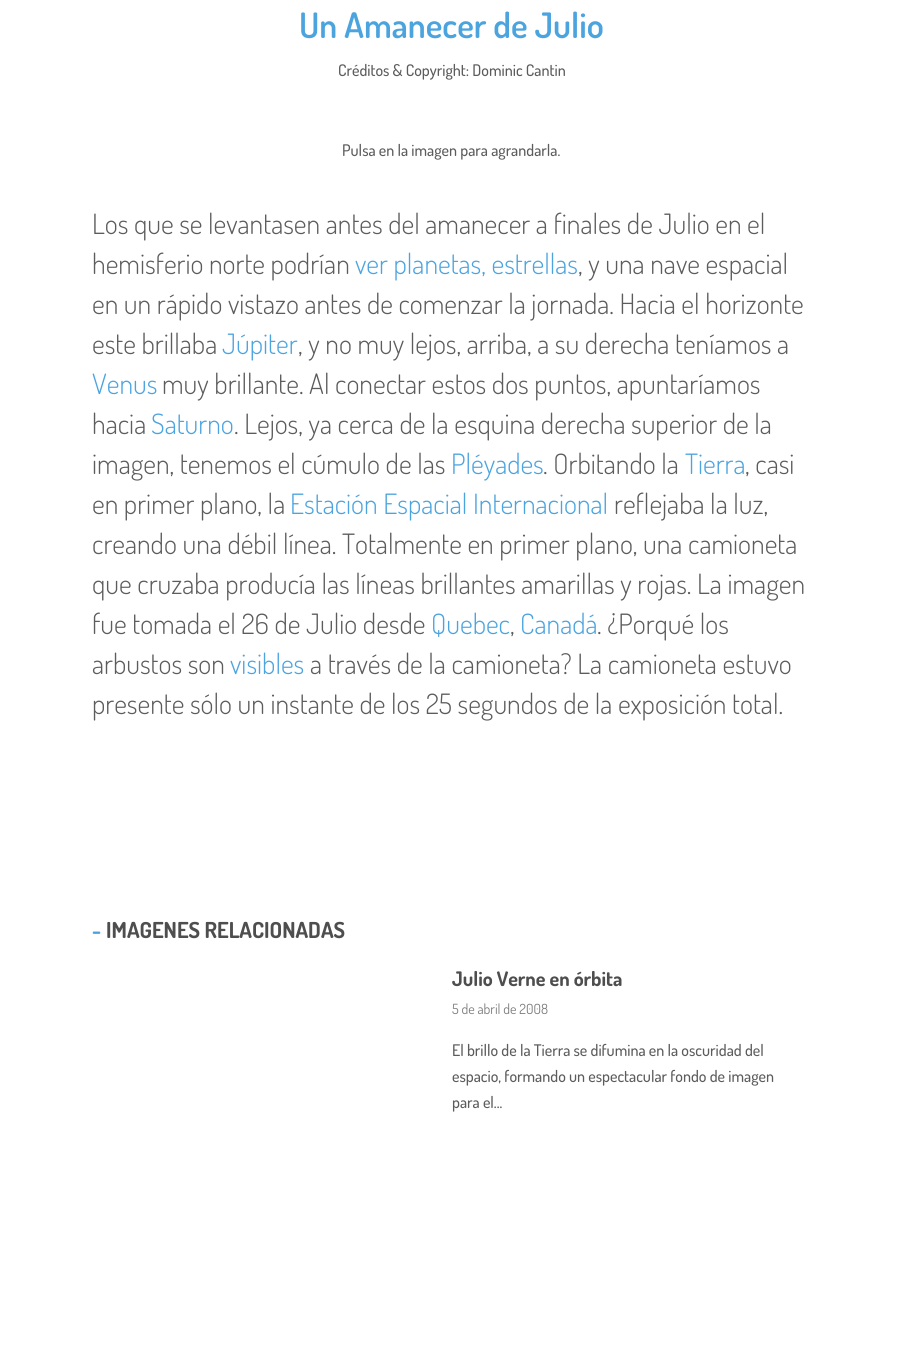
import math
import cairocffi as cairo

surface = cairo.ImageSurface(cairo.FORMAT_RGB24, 903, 1350)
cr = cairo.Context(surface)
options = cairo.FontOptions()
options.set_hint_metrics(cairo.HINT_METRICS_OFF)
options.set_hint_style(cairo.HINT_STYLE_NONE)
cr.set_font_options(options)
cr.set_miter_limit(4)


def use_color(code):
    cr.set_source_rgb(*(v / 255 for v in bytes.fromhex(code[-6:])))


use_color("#ffffff")
cr.paint()
cr.select_font_face("Dosis SemiBold")
cr.set_font_size(35)
use_color("#4ca4df")
cr.move_to(299, 38)
cr.show_text("Un Amanecer de Julio")
cr.select_font_face("Dosis Medium")
cr.set_font_size(16)
use_color("#5c5c5c")
cr.move_to(338, 76)
cr.show_text("Créditos & Copyright: Dominic Cantin")
cr.move_to(342, 156)
cr.show_text("Pulsa en la imagen para agrandarla.")
cr.select_font_face("Dosis Light")
cr.set_font_size(28)
cr.move_to(92, 234)
cr.show_text("Los que se levantasen antes del amanecer a finales de Julio en el")
cr.move_to(92, 274)
cr.show_text("hemisferio norte podrían")
use_color("#4ca4df")
cr.move_to(355, 274)
cr.show_text("ver planetas, estrellas")
use_color("#5c5c5c")
cr.move_to(578, 274)
cr.show_text(", y una nave espacial")
cr.move_to(92, 314)
cr.show_text("en un rápido vistazo antes de comenzar la jornada. Hacia el horizonte")
cr.move_to(92, 354)
cr.show_text("este brillaba")
use_color("#4ca4df")
cr.move_to(222, 354)
cr.show_text("Júpiter")
use_color("#5c5c5c")
cr.move_to(298, 354)
cr.show_text(", y no muy lejos, arriba, a su derecha teníamos a")
use_color("#4ca4df")
cr.move_to(92, 394)
cr.show_text("Venus")
use_color("#5c5c5c")
cr.move_to(162, 394)
cr.show_text("muy brillante. Al conectar estos dos puntos, apuntaríamos")
cr.move_to(92, 434)
cr.show_text("hacia")
use_color("#4ca4df")
cr.move_to(151, 434)
cr.show_text("Saturno")
use_color("#5c5c5c")
cr.move_to(234, 434)
cr.show_text(". Lejos, ya cerca de la esquina derecha superior de la")
cr.move_to(92, 474)
cr.show_text("imagen, tenemos el cúmulo de las")
use_color("#4ca4df")
cr.move_to(451, 474)
cr.show_text("Pléyades")
use_color("#5c5c5c")
cr.move_to(543, 474)
cr.show_text(". Orbitando la")
use_color("#4ca4df")
cr.move_to(685, 474)
cr.show_text("Tierra")
use_color("#5c5c5c")
cr.move_to(745, 474)
cr.show_text(", casi")
cr.move_to(92, 514)
cr.show_text("en primer plano, la")
use_color("#4ca4df")
cr.move_to(290, 514)
cr.show_text("Estación Espacial Internacional")
use_color("#5c5c5c")
cr.move_to(614, 514)
cr.show_text("reflejaba la luz,")
cr.move_to(92, 554)
cr.show_text("creando una débil línea. Totalmente en primer plano, una camioneta")
cr.move_to(92, 594)
cr.show_text("que cruzaba producía las líneas brillantes amarillas y rojas. La imagen")
cr.move_to(92, 634)
cr.show_text("fue tomada el 26 de Julio desde")
use_color("#4ca4df")
cr.move_to(431, 634)
cr.show_text("Quebec")
use_color("#5c5c5c")
cr.move_to(510, 634)
cr.show_text(",")
use_color("#4ca4df")
cr.move_to(520, 634)
cr.show_text("Canadá")
use_color("#5c5c5c")
cr.move_to(597, 634)
cr.show_text(". ¿Porqué los")
cr.move_to(92, 674)
cr.show_text("arbustos son")
use_color("#4ca4df")
cr.move_to(230, 674)
cr.show_text("visibles")
use_color("#5c5c5c")
cr.move_to(310, 674)
cr.show_text("a través de la camioneta? La camioneta estuvo")
cr.move_to(92, 714)
cr.show_text("presente sólo un instante de los 25 segundos de la exposición total.")
cr.select_font_face("Dosis", cairo.FONT_SLANT_NORMAL, cairo.FONT_WEIGHT_BOLD)
cr.set_font_size(22)
use_color("#4ca4df")
cr.move_to(92, 938)
cr.show_text("-")
use_color("#4e4e4e")
cr.move_to(106, 938)
cr.show_text("IMAGENES RELACIONADAS")
cr.set_font_size(20)
cr.move_to(452, 986)
cr.show_text("Julio Verne en órbita")
cr.select_font_face("Dosis")
cr.set_font_size(14)
use_color("#7c7c7c")
cr.move_to(452, 1014)
cr.show_text("5 de abril de 2008")
cr.select_font_face("Dosis Medium")
cr.set_font_size(16)
use_color("#5c5c5c")
cr.move_to(452, 1056)
cr.show_text("El brillo de la Tierra se difumina en la oscuridad del")
cr.move_to(452, 1082)
cr.show_text("espacio, formando un espectacular fondo de imagen")
cr.move_to(452, 1108)
cr.show_text("para el...")
surface.write_to_png("result.png")
